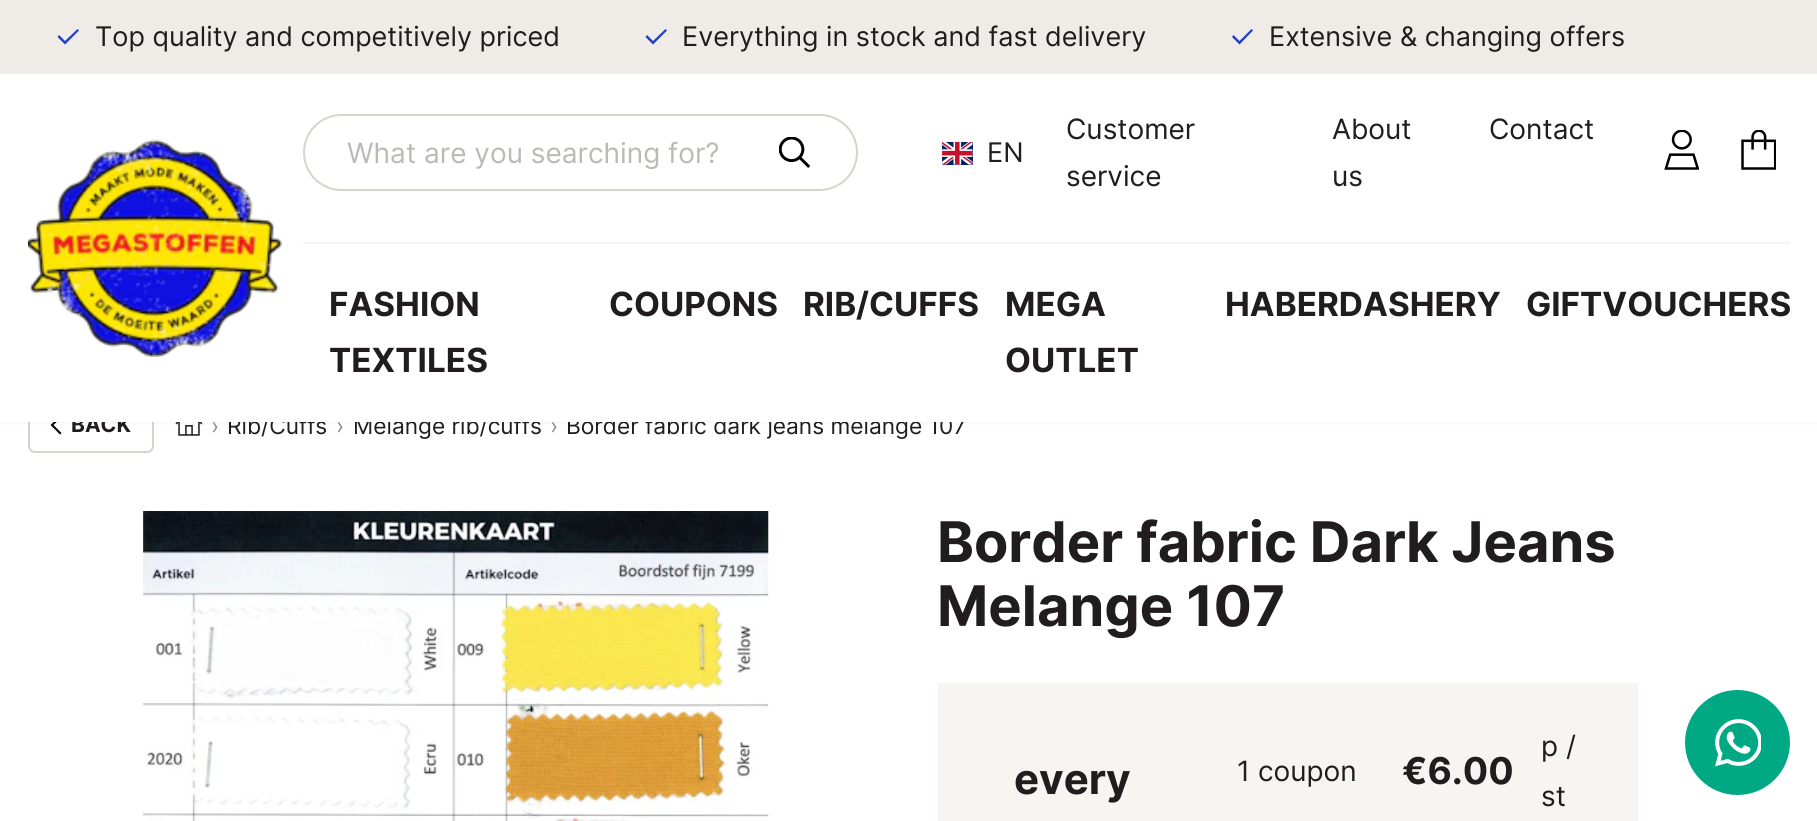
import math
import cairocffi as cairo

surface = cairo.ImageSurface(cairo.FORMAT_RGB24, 1817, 821)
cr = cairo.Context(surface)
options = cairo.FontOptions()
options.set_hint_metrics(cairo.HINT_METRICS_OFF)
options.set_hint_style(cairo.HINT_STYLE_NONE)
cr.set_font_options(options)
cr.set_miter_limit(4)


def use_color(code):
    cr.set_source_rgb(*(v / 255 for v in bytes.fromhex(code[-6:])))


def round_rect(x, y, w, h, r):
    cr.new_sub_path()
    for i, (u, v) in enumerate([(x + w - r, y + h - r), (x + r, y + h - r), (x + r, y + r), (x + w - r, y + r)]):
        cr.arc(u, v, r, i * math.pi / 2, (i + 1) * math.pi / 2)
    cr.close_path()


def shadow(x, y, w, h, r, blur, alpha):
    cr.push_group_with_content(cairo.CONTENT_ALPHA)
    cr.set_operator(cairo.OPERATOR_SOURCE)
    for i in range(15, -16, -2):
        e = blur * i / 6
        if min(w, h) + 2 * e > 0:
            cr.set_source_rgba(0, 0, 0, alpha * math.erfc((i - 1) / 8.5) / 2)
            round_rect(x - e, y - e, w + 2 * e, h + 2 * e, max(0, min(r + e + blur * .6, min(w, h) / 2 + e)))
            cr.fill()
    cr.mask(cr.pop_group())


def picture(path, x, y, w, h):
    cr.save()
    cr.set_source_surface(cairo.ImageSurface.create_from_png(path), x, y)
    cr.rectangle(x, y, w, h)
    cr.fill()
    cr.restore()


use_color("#ffffff")
cr.paint()
round_rect(29, 398, 124, 54, 6)
use_color("#d6d4cf")
cr.stroke()
use_color("#000000")
cr.new_path()
cr.move_to(50.5, 425)
cr.line_to(60, 416)
cr.line_to(61.5, 417.5)
cr.line_to(53.5, 425)
cr.line_to(61.5, 433)
cr.line_to(60, 434.5)
cr.close_path()
cr.fill()
picture("img6.png", 175, 422, 28, 14)
use_color("#000000")
shadow(0, 0, 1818, 422, 0, 2.5, 0.07)
cr.select_font_face("Inter", cairo.FONT_SLANT_NORMAL, cairo.FONT_WEIGHT_BOLD)
cr.set_font_size(21)
use_color("#211d1e")
cr.move_to(71, 432)
cr.show_text("BACK")
cr.select_font_face("Inter")
cr.set_font_size(22.75)
cr.move_to(227, 434)
cr.show_text("Rib/Cuffs")
cr.move_to(353, 434)
cr.show_text("Melange rib/cuffs")
cr.move_to(566, 434)
cr.show_text("Border fabric dark jeans melange 107")
use_color("#ffffff")
cr.rectangle(0, 74, 1817, 348)
cr.fill()
use_color("#efece7")
cr.rectangle(0, 0, 1817, 74)
cr.fill()
use_color("#223dc7")
cr.new_path()
cr.move_to(79, 30.5)
cr.line_to(65, 44.5)
cr.line_to(57.5, 37)
cr.line_to(59, 35)
cr.line_to(65, 41)
cr.line_to(77.5, 29)
cr.close_path()
cr.fill()
cr.set_font_size(27)
use_color("#211d1e")
cr.move_to(95, 46)
cr.show_text("Top quality and competitively priced")
use_color("#223dc7")
cr.new_path()
cr.move_to(667, 30.5)
cr.line_to(653, 44.5)
cr.line_to(645.5, 37)
cr.line_to(647, 35)
cr.line_to(653, 41)
cr.line_to(665.5, 29)
cr.close_path()
cr.fill()
use_color("#211d1e")
cr.move_to(682, 46)
cr.show_text("Everything in stock and fast delivery")
use_color("#223dc7")
cr.new_path()
cr.move_to(1253, 30.5)
cr.line_to(1239.5, 44.5)
cr.line_to(1232, 37)
cr.line_to(1233.5, 35)
cr.line_to(1239.5, 41)
cr.line_to(1251.5, 29)
cr.close_path()
cr.fill()
use_color("#211d1e")
cr.move_to(1269, 46)
cr.show_text("Extensive & changing offers")
picture("img1.png", 28, 139, 255, 218)
use_color("#f4f4f4")
cr.rectangle(303, 242, 1487, 2)
cr.fill()
round_rect(304, 115, 553, 75, 37.5)
use_color("#d6d4cf")
cr.stroke()
cr.set_font_size(28)
use_color("#bdbab6")
cr.move_to(347, 163)
cr.show_text("What are you searching for?")
picture("img2.png", 779, 137, 31, 31)
picture("img3.png", 942, 142, 31, 23)
cr.set_font_size(27)
use_color("#211d1e")
cr.move_to(987, 162)
cr.show_text("EN")
cr.set_font_size(28)
cr.move_to(1066, 139)
cr.show_text("Customer")
cr.move_to(1066, 186)
cr.show_text("service")
cr.move_to(1332, 139)
cr.show_text("About")
cr.move_to(1332, 186)
cr.show_text("us")
cr.move_to(1489, 139)
cr.show_text("Contact")
picture("img4.png", 1664, 130, 35, 40)
picture("img5.png", 1741, 130, 35, 40)
cr.select_font_face("Inter", cairo.FONT_SLANT_NORMAL, cairo.FONT_WEIGHT_BOLD)
cr.set_font_size(33.25)
cr.move_to(329, 316)
cr.show_text("FASHION")
cr.move_to(329, 372)
cr.show_text("TEXTILES")
cr.move_to(609, 316)
cr.show_text("COUPONS")
cr.move_to(803, 316)
cr.show_text("RIB/CUFFS")
cr.move_to(1005, 316)
cr.show_text("MEGA")
cr.move_to(1005, 372)
cr.show_text("OUTLET")
cr.move_to(1225, 316)
cr.show_text("HABERDASHERY")
cr.move_to(1526, 316)
cr.show_text("GIFTVOUCHERS")
cr.select_font_face("Inter")
cr.set_font_size(22.75)
use_color("#908e8f")
cr.move_to(211, 434)
cr.show_text("›")
cr.move_to(336, 434)
cr.show_text("›")
cr.move_to(550, 434)
cr.show_text("›")
picture("img7.png", 143, 511, 626, 310)
cr.select_font_face("Inter", cairo.FONT_SLANT_NORMAL, cairo.FONT_WEIGHT_BOLD)
cr.set_font_size(56)
use_color("#211d1e")
cr.move_to(937, 562)
cr.show_text("Border fabric Dark Jeans")
cr.move_to(937, 626)
cr.show_text("Melange 107")
use_color("#f6f5f2")
cr.rectangle(938, 683, 700, 138)
cr.fill()
cr.set_font_size(42)
use_color("#211d1e")
cr.move_to(1014, 794)
cr.show_text("every")
cr.select_font_face("Inter")
cr.set_font_size(28)
cr.move_to(1237, 781)
cr.show_text("1 coupon")
cr.select_font_face("Inter", cairo.FONT_SLANT_NORMAL, cairo.FONT_WEIGHT_BOLD)
cr.set_font_size(37)
cr.move_to(1402, 784)
cr.show_text("€6.00")
cr.select_font_face("Inter")
cr.set_font_size(28)
cr.move_to(1541, 756)
cr.show_text("p /")
cr.move_to(1541, 806)
cr.show_text("st")
use_color("#00a884")
cr.new_path()
cr.arc(1737.5, 742.5, 52.5, 0, 2 * math.pi)
cr.fill()
picture("img8.png", 1715, 719, 46, 48)
surface.write_to_png("result.png")
